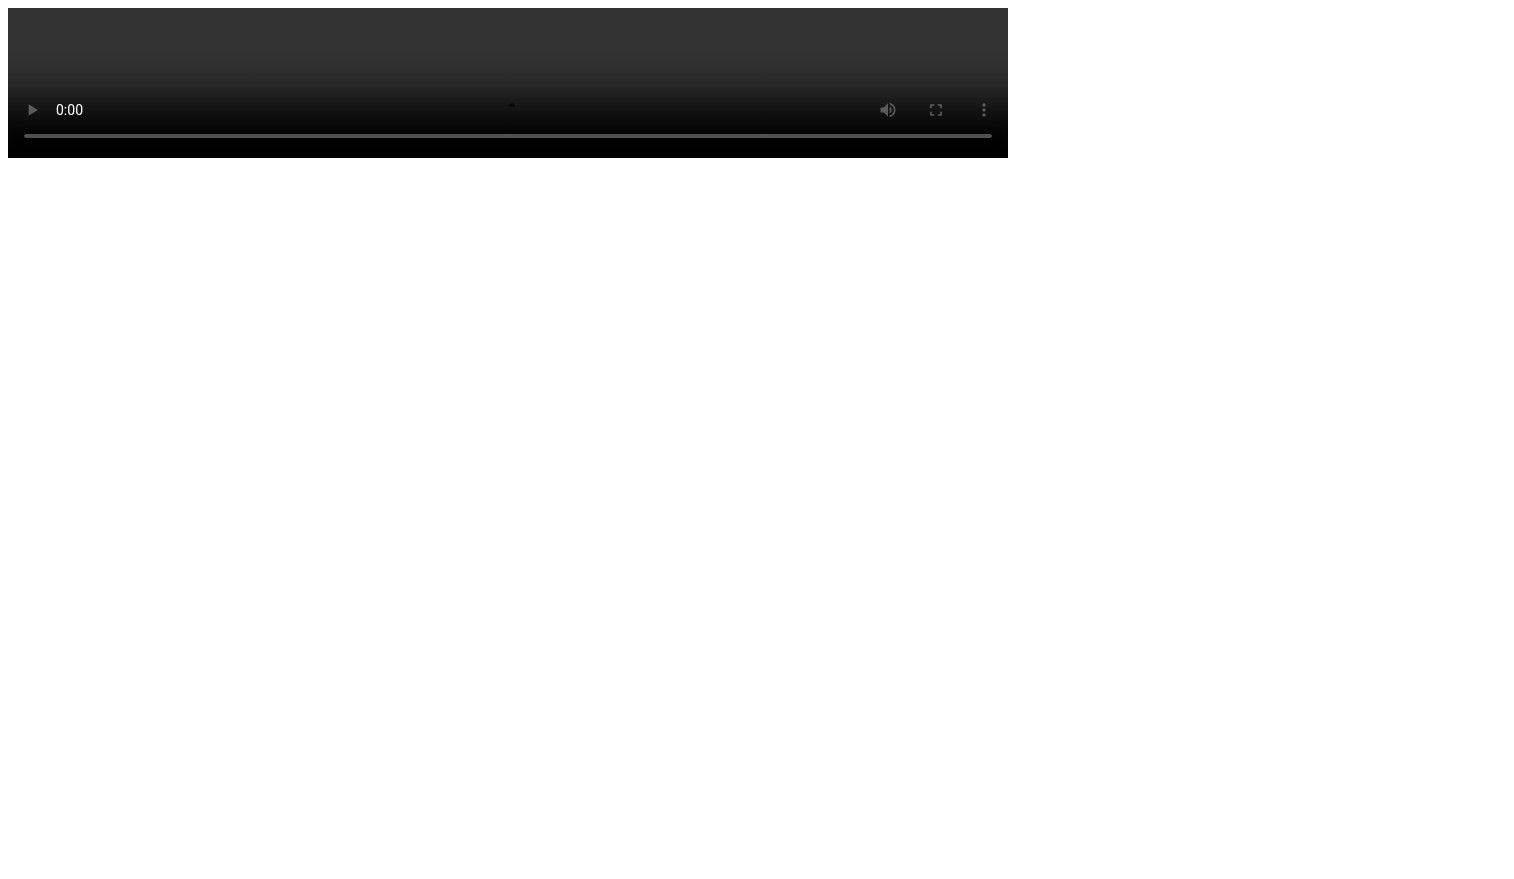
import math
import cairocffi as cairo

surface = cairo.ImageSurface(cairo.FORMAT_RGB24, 1514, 879)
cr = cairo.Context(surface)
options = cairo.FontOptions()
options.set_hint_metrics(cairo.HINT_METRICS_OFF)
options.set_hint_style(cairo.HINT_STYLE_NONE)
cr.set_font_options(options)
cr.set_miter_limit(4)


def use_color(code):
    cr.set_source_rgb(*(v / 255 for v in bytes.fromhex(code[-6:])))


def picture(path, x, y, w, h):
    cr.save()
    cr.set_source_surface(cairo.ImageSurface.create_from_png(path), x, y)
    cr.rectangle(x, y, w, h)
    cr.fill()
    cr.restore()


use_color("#ffffff")
cr.paint()
picture("img1.png", 8, 8, 1000, 150)
surface.write_to_png("result.png")
